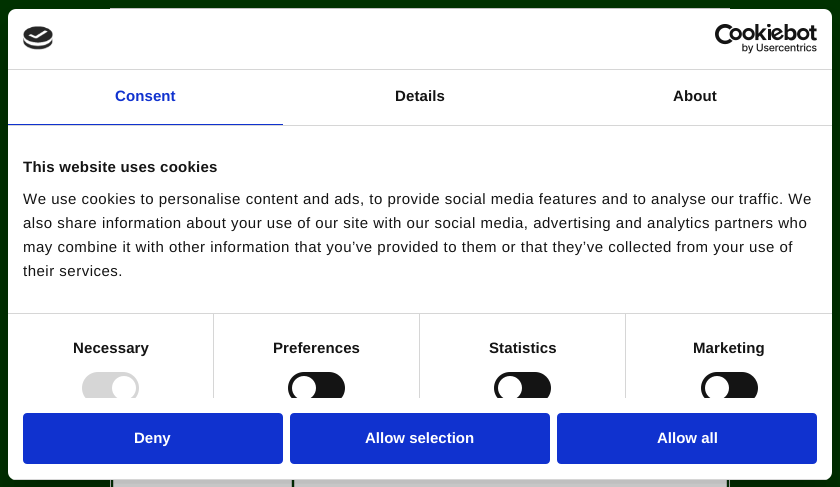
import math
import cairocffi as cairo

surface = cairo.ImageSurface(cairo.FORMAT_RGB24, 840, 487)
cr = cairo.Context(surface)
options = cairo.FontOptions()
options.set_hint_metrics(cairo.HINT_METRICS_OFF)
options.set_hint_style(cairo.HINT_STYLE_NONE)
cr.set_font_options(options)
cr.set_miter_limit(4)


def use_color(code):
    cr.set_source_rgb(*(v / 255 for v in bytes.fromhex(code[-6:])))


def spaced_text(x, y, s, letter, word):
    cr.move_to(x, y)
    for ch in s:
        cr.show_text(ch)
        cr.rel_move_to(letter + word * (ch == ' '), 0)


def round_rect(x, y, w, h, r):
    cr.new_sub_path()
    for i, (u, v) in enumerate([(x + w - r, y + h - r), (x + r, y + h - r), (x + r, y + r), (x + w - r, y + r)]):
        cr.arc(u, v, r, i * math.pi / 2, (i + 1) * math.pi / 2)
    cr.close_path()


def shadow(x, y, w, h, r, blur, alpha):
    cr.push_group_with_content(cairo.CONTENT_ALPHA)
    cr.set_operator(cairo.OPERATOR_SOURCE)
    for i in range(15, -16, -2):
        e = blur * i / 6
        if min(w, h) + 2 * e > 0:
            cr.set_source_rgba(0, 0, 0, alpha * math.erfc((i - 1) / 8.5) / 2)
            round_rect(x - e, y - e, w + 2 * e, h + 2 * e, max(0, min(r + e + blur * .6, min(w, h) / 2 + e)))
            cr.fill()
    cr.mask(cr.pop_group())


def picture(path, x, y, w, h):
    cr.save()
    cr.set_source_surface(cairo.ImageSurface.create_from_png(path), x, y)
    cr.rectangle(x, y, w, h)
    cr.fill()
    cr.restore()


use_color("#003300")
cr.paint()
cr.rectangle(110.5, 8.5, 619, 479)
use_color("#cccccc")
cr.set_line_width(1)
cr.stroke()
use_color("#ffffff")
cr.rectangle(114, 480, 177, 7)
cr.fill()
cr.rectangle(113.5, 159.5, 178, 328)
use_color("#cccccc")
cr.stroke()
use_color("#ffffff")
cr.rectangle(295, 480, 431, 7)
cr.fill()
cr.rectangle(294.5, 159.5, 432, 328)
use_color("#cccccc")
cr.stroke()
use_color("#000000")
shadow(8, 41, 824, 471, 8, 34, 0.3)
use_color("#ffffff")
round_rect(8, 9, 824, 471, 8)
cr.fill()
use_color("#d6d6d6")
cr.rectangle(8, 69, 824, 1)
cr.fill()
picture("img1.png", 23, 26, 30, 24)
picture("img2.png", 715, 24, 102, 30)
cr.rectangle(8, 125, 824, 1)
cr.fill()
use_color("#1032cf")
cr.rectangle(8, 124, 275, 1)
cr.fill()
cr.select_font_face("Liberation Sans", cairo.FONT_SLANT_NORMAL, cairo.FONT_WEIGHT_BOLD)
cr.set_font_size(15)
spaced_text(115, 101, "Consent", 0.1, 0)
use_color("#141414")
spaced_text(395, 101, "Details", 0.1, 0)
spaced_text(673, 101, "About", 0.1, 0)
use_color("#d6d6d6")
cr.rectangle(8, 313, 824, 1)
cr.fill()
use_color("#141414")
spaced_text(23, 172, "This website uses cookies", 0.25, 0)
cr.select_font_face("Liberation Sans")
spaced_text(23, 204, "We use cookies to personalise content and ads, to provide social media features and to analyse our traffic. We", 0.5, 0)
spaced_text(23, 228, "also share information about your use of our site with our social media, advertising and analytics partners who", 0.5, 0)
spaced_text(23, 252, "may combine it with other information that you’ve provided to them or that they’ve collected from your use of", 0.5, 0)
spaced_text(23, 276, "their services.", 0.5, 0)
use_color("#d6d6d6")
cr.rectangle(213, 314, 1, 84)
cr.fill()
cr.select_font_face("Liberation Sans", cairo.FONT_SLANT_NORMAL, cairo.FONT_WEIGHT_BOLD)
use_color("#141414")
spaced_text(73, 353, "Necessary", 0.1, 0)
cr.save()
cr.rectangle(8, 126, 824, 272)
cr.clip()
use_color("#d6d6d6")
round_rect(82, 372, 57, 32, 16)
cr.fill()
use_color("#ffffff")
cr.arc(124, 388, 12, 0, 2 * math.pi)
cr.fill()
cr.restore()
use_color("#d6d6d6")
cr.rectangle(419, 314, 1, 84)
cr.fill()
use_color("#141414")
spaced_text(273, 353, "Preferences", 0.1, 0)
cr.save()
cr.rectangle(8, 126, 824, 272)
cr.clip()
round_rect(288, 372, 57, 32, 16)
cr.fill()
use_color("#ffffff")
cr.arc(304, 388, 12, 0, 2 * math.pi)
cr.fill()
cr.restore()
use_color("#d6d6d6")
cr.rectangle(625, 314, 1, 84)
cr.fill()
use_color("#141414")
spaced_text(489, 353, "Statistics", 0.1, 0)
cr.save()
cr.rectangle(8, 126, 824, 272)
cr.clip()
round_rect(494, 372, 57, 32, 16)
cr.fill()
use_color("#ffffff")
cr.arc(510, 388, 12, 0, 2 * math.pi)
cr.fill()
cr.restore()
spaced_text(693, 353, "Marketing", 0.1, 0)
cr.save()
cr.rectangle(8, 126, 824, 272)
cr.clip()
round_rect(701, 372, 57, 32, 16)
cr.fill()
use_color("#ffffff")
cr.arc(717, 388, 12, 0, 2 * math.pi)
cr.fill()
cr.restore()
cr.save()
round_rect(8, 9, 824, 471, 8)
cr.clip()
use_color("#d6d6d6")
cr.rectangle(8, 479, 824, 1)
cr.fill()
cr.restore()
use_color("#1032cf")
round_rect(24, 414, 258, 49, 3)
cr.fill_preserve()
cr.set_line_width(2)
cr.stroke()
use_color("#ffffff")
cr.move_to(134, 443)
cr.show_text("Deny")
use_color("#1032cf")
round_rect(291, 414, 258, 49, 3)
cr.fill_preserve()
cr.stroke()
use_color("#ffffff")
cr.move_to(365, 443)
cr.show_text("Allow selection")
use_color("#1032cf")
round_rect(558, 414, 258, 49, 3)
cr.fill_preserve()
cr.stroke()
use_color("#ffffff")
cr.move_to(657, 443)
cr.show_text("Allow all")
surface.write_to_png("result.png")
